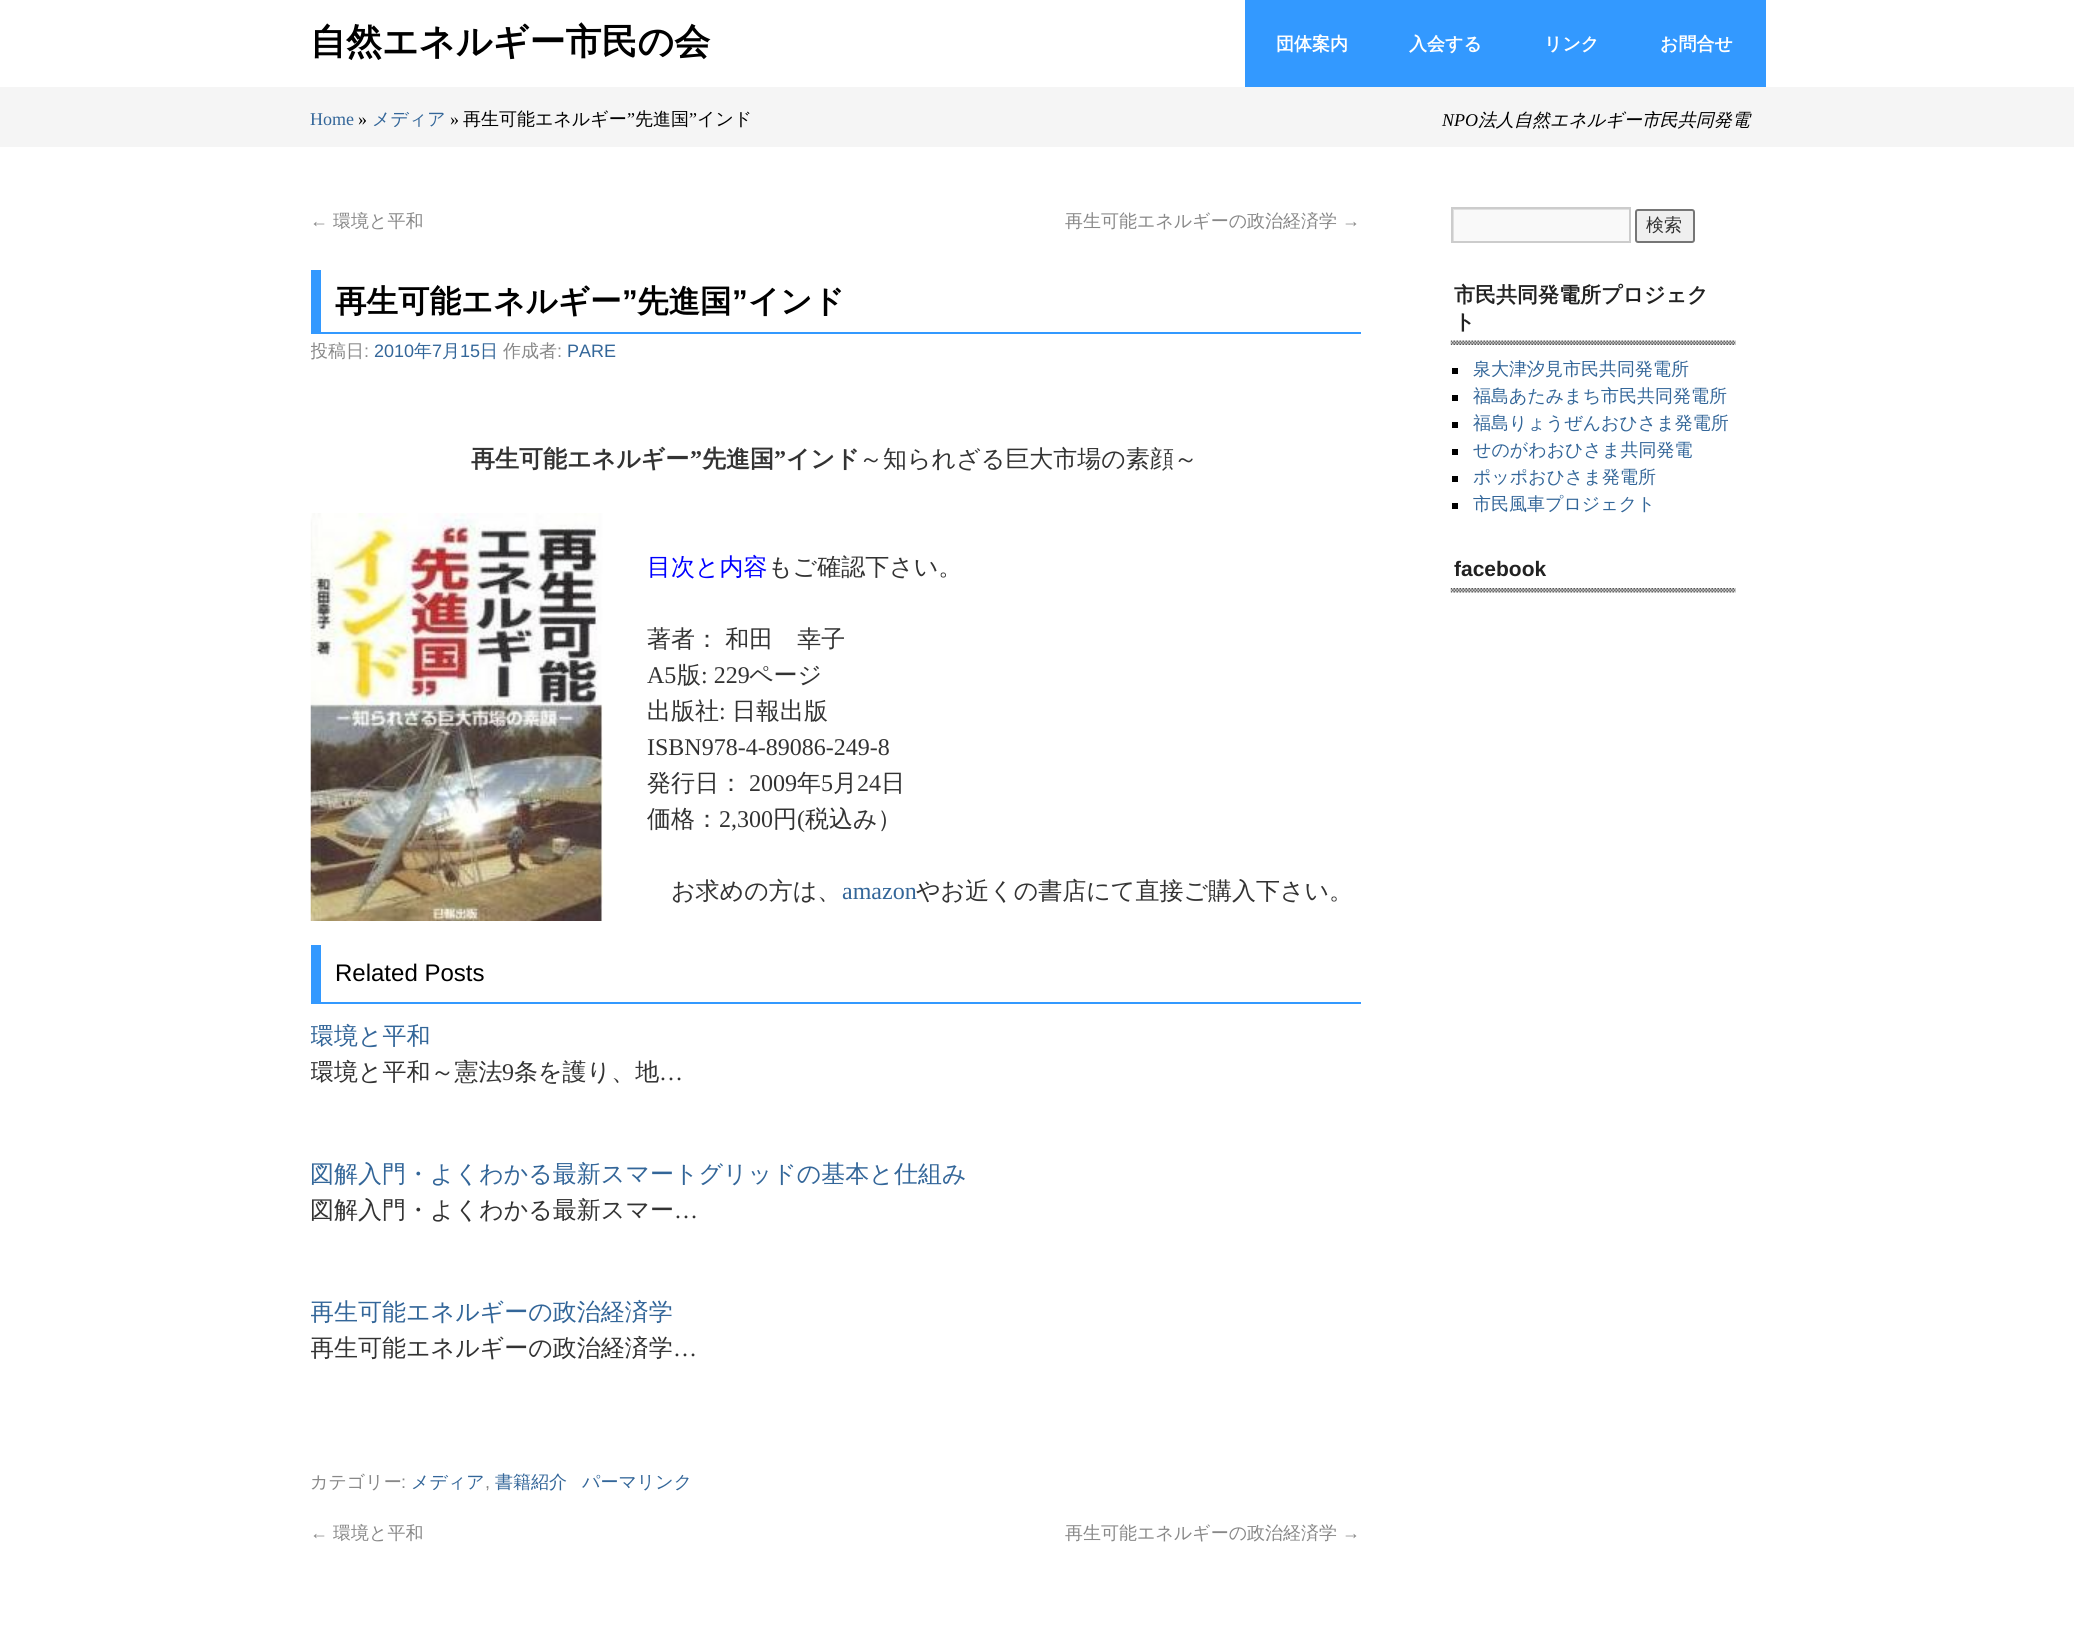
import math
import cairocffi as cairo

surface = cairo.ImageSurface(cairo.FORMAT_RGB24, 2074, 1640)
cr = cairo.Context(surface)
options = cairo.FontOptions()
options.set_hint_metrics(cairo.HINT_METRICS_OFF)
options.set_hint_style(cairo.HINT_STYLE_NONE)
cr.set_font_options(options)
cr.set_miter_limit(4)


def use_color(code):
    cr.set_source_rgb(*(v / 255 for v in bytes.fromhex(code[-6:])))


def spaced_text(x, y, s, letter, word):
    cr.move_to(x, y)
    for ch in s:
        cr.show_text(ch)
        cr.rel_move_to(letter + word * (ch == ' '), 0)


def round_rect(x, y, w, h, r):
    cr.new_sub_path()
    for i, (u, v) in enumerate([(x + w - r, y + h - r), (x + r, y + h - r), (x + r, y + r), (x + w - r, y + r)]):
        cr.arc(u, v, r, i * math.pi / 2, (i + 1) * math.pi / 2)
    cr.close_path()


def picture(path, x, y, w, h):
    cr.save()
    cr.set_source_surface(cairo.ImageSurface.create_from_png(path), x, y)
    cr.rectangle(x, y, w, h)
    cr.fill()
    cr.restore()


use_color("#ffffff")
cr.paint()
cr.select_font_face("WenQuanYi Zen Hei", cairo.FONT_SLANT_NORMAL, cairo.FONT_WEIGHT_BOLD)
cr.set_font_size(36)
use_color("#000000")
cr.move_to(310, 54)
cr.show_text("自然エネルギー市民の会")
use_color("#3399ff")
cr.rectangle(1245, 0, 521, 87)
cr.fill()
cr.set_font_size(18)
use_color("#ffffff")
cr.move_to(1276, 50)
cr.show_text("団体案内")
cr.move_to(1409, 50)
cr.show_text("入会する")
cr.move_to(1544, 50)
cr.show_text("リンク")
cr.move_to(1660, 50)
cr.show_text("お問合せ")
use_color("#f5f5f5")
cr.rectangle(0, 87, 2074, 60)
cr.fill()
cr.select_font_face("Liberation Serif", cairo.FONT_SLANT_ITALIC)
use_color("#000000")
cr.move_to(1442, 126)
cr.show_text("NPO")
cr.select_font_face("WenQuanYi Zen Hei Medium", cairo.FONT_SLANT_ITALIC)
cr.move_to(1478, 126)
cr.show_text("法人自然エネルギー市民共同発電")
cr.select_font_face("Liberation Serif")
use_color("#336699")
cr.move_to(310, 125)
cr.show_text("Home")
cr.select_font_face("WenQuanYi Zen Hei Medium")
cr.move_to(372, 125)
cr.show_text("メディア")
use_color("#000000")
cr.move_to(463, 125)
cr.show_text("再生可能エネルギー")
cr.select_font_face("Liberation Serif")
cr.move_to(627, 125)
cr.show_text("”")
cr.select_font_face("WenQuanYi Zen Hei Medium")
cr.move_to(635, 125)
cr.show_text("先進国")
cr.select_font_face("Liberation Serif")
cr.move_to(689, 125)
cr.show_text("”")
cr.select_font_face("WenQuanYi Zen Hei Medium")
cr.move_to(697, 125)
cr.show_text("インド")
cr.select_font_face("Liberation Serif")
cr.move_to(358, 125)
cr.show_text("»")
cr.move_to(450, 125)
cr.show_text("»")
cr.select_font_face("Liberation Sans")
use_color("#888888")
cr.move_to(310, 227)
cr.show_text("←")
cr.select_font_face("WenQuanYi Zen Hei Medium")
cr.move_to(333, 227)
cr.show_text("環境と平和")
cr.move_to(1065, 227)
cr.show_text("再生可能エネルギーの政治経済学")
cr.select_font_face("Liberation Sans")
cr.move_to(1342, 227)
cr.show_text("→")
use_color("#3399ff")
cr.rectangle(311, 332, 1050, 2)
cr.fill()
cr.rectangle(311, 270, 10, 62)
cr.fill()
cr.select_font_face("WenQuanYi Zen Hei", cairo.FONT_SLANT_NORMAL, cairo.FONT_WEIGHT_BOLD)
cr.set_font_size(31.5)
use_color("#000000")
cr.move_to(335, 312)
cr.show_text("再生可能エネルギー")
cr.select_font_face("Liberation Sans", cairo.FONT_SLANT_NORMAL, cairo.FONT_WEIGHT_BOLD)
cr.move_to(622, 312)
cr.show_text("”")
cr.select_font_face("WenQuanYi Zen Hei", cairo.FONT_SLANT_NORMAL, cairo.FONT_WEIGHT_BOLD)
cr.move_to(637, 312)
cr.show_text("先進国")
cr.select_font_face("Liberation Sans", cairo.FONT_SLANT_NORMAL, cairo.FONT_WEIGHT_BOLD)
cr.move_to(732, 312)
cr.show_text("”")
cr.select_font_face("WenQuanYi Zen Hei", cairo.FONT_SLANT_NORMAL, cairo.FONT_WEIGHT_BOLD)
cr.move_to(748, 312)
cr.show_text("インド")
cr.save()
cr.rectangle(311, 177, 1455, 1454)
cr.clip()
cr.select_font_face("WenQuanYi Zen Hei Medium")
cr.set_font_size(18)
use_color("#888888")
cr.move_to(310, 357)
cr.show_text("投稿日")
cr.restore()
cr.select_font_face("Liberation Sans")
cr.set_font_size(18)
use_color("#888888")
cr.move_to(364, 357)
cr.show_text(":")
use_color("#336699")
cr.move_to(374, 357)
cr.show_text("2010")
cr.select_font_face("WenQuanYi Zen Hei Medium")
cr.move_to(414, 357)
cr.show_text("年")
cr.select_font_face("Liberation Sans")
cr.move_to(432, 357)
cr.show_text("7")
cr.select_font_face("WenQuanYi Zen Hei Medium")
cr.move_to(442, 357)
cr.show_text("月")
cr.select_font_face("Liberation Sans")
cr.move_to(460, 357)
cr.show_text("15")
cr.select_font_face("WenQuanYi Zen Hei Medium")
cr.move_to(480, 357)
cr.show_text("日")
use_color("#888888")
cr.move_to(503, 357)
cr.show_text("作成者")
cr.select_font_face("Liberation Sans")
cr.move_to(557, 357)
cr.show_text(":")
use_color("#336699")
cr.move_to(567, 357)
cr.show_text("PARE")
cr.select_font_face("WenQuanYi Zen Hei", cairo.FONT_SLANT_NORMAL, cairo.FONT_WEIGHT_BOLD)
cr.set_font_size(24)
use_color("#333333")
cr.move_to(471, 467)
cr.show_text("再生可能エネルギー")
cr.select_font_face("Liberation Serif", cairo.FONT_SLANT_NORMAL, cairo.FONT_WEIGHT_BOLD)
cr.move_to(690, 467)
cr.show_text("”")
cr.select_font_face("WenQuanYi Zen Hei", cairo.FONT_SLANT_NORMAL, cairo.FONT_WEIGHT_BOLD)
cr.move_to(702, 467)
cr.show_text("先進国")
cr.select_font_face("Liberation Serif", cairo.FONT_SLANT_NORMAL, cairo.FONT_WEIGHT_BOLD)
cr.move_to(774, 467)
cr.show_text("”")
cr.select_font_face("WenQuanYi Zen Hei", cairo.FONT_SLANT_NORMAL, cairo.FONT_WEIGHT_BOLD)
cr.move_to(786, 467)
cr.show_text("インド")
cr.select_font_face("WenQuanYi Zen Hei Medium")
cr.move_to(859, 467)
cr.show_text("～知られざる巨大市場の素顔～")
picture("img1.png", 310, 513, 293, 408)
use_color("#0000ff")
cr.move_to(647, 575)
cr.show_text("目次と内容")
use_color("#333333")
cr.move_to(768, 575)
cr.show_text("もご確認下さい。")
spaced_text(647, 647, "著者： 和田　幸子", 0, -1)
cr.select_font_face("Liberation Serif")
cr.move_to(647, 683)
cr.show_text("A5")
cr.select_font_face("WenQuanYi Zen Hei Medium")
cr.move_to(677, 683)
cr.show_text("版")
cr.select_font_face("Liberation Serif")
cr.move_to(701, 683)
cr.show_text(": 229")
cr.select_font_face("WenQuanYi Zen Hei Medium")
cr.move_to(749, 683)
cr.show_text("ページ")
cr.move_to(647, 719)
cr.show_text("出版社")
cr.select_font_face("Liberation Serif")
cr.move_to(719, 719)
cr.show_text(":")
cr.select_font_face("WenQuanYi Zen Hei Medium")
cr.move_to(732, 719)
cr.show_text("日報出版")
cr.select_font_face("Liberation Serif")
cr.move_to(647, 755)
cr.show_text("ISBN978-4-89086-249-8")
cr.select_font_face("WenQuanYi Zen Hei Medium")
cr.move_to(647, 791)
cr.show_text("発行日：")
cr.select_font_face("Liberation Serif")
cr.move_to(749, 791)
cr.show_text("2009")
cr.select_font_face("WenQuanYi Zen Hei Medium")
cr.move_to(797, 791)
cr.show_text("年")
cr.select_font_face("Liberation Serif")
cr.move_to(821, 791)
cr.show_text("5")
cr.select_font_face("WenQuanYi Zen Hei Medium")
cr.move_to(833, 791)
cr.show_text("月")
cr.select_font_face("Liberation Serif")
cr.move_to(857, 791)
cr.show_text("24")
cr.select_font_face("WenQuanYi Zen Hei Medium")
cr.move_to(881, 791)
cr.show_text("日")
cr.move_to(647, 827)
cr.show_text("価格：")
cr.select_font_face("Liberation Serif")
cr.move_to(719, 827)
cr.show_text("2,300")
cr.select_font_face("WenQuanYi Zen Hei Medium")
cr.move_to(773, 827)
cr.show_text("円")
cr.select_font_face("Liberation Serif")
cr.move_to(797, 827)
cr.show_text("(")
cr.select_font_face("WenQuanYi Zen Hei Medium")
cr.move_to(805, 827)
cr.show_text("税込み）")
cr.move_to(671, 899)
cr.show_text("お求めの方は、")
cr.select_font_face("Liberation Serif")
use_color("#336699")
cr.move_to(842, 899)
cr.show_text("amazon")
cr.select_font_face("WenQuanYi Zen Hei Medium")
use_color("#333333")
cr.move_to(916, 899)
cr.show_text("やお近くの書店にて直接ご購入下さい。")
use_color("#3399ff")
cr.rectangle(321, 1002, 1040, 2)
cr.fill()
cr.rectangle(311, 945, 10, 59)
cr.fill()
cr.select_font_face("Liberation Sans")
use_color("#000000")
cr.move_to(335, 981)
cr.show_text("Related Posts")
cr.save()
cr.rectangle(311, 177, 1455, 1454)
cr.clip()
cr.select_font_face("WenQuanYi Zen Hei Medium")
use_color("#336699")
cr.move_to(310, 1044)
cr.show_text("環境と平和")
use_color("#333333")
cr.move_to(310, 1080)
cr.show_text("環境と平和～憲法")
cr.restore()
cr.select_font_face("Liberation Serif")
use_color("#333333")
cr.move_to(502, 1080)
cr.show_text("9")
cr.select_font_face("WenQuanYi Zen Hei Medium")
cr.move_to(514, 1080)
cr.show_text("条を護り、地")
cr.select_font_face("Liberation Serif")
cr.move_to(659, 1080)
cr.show_text("…")
cr.select_font_face("WenQuanYi Zen Hei Medium")
use_color("#336699")
cr.move_to(310, 1182)
cr.show_text("図解入門・よくわかる最新スマートグリッドの基本と仕組み")
use_color("#333333")
cr.move_to(310, 1218)
cr.show_text("図解入門・よくわかる最新スマー")
cr.select_font_face("Liberation Serif")
cr.move_to(674, 1218)
cr.show_text("…")
cr.save()
cr.rectangle(311, 177, 1455, 1454)
cr.clip()
cr.select_font_face("WenQuanYi Zen Hei Medium")
use_color("#336699")
cr.move_to(310, 1320)
cr.show_text("再生可能エネルギーの政治経済学")
use_color("#333333")
cr.move_to(310, 1356)
cr.show_text("再生可能エネルギーの政治経済学")
cr.restore()
cr.move_to(673, 1356)
cr.show_text("…")
cr.select_font_face("WenQuanYi Zen Hei Medium")
cr.set_font_size(18)
use_color("#888888")
cr.move_to(310, 1488)
cr.show_text("カテゴリー")
cr.select_font_face("Liberation Sans")
cr.move_to(401, 1488)
cr.show_text(":")
cr.select_font_face("WenQuanYi Zen Hei Medium")
use_color("#336699")
cr.move_to(411, 1488)
cr.show_text("メディア")
cr.move_to(495, 1488)
cr.show_text("書籍紹介")
cr.move_to(582, 1488)
cr.show_text("パーマリンク")
cr.select_font_face("Liberation Sans")
use_color("#888888")
cr.move_to(485, 1488)
cr.show_text(",")
cr.move_to(310, 1539)
cr.show_text("←")
cr.select_font_face("WenQuanYi Zen Hei Medium")
cr.move_to(333, 1539)
cr.show_text("環境と平和")
cr.move_to(1065, 1539)
cr.show_text("再生可能エネルギーの政治経済学")
cr.select_font_face("Liberation Sans")
cr.move_to(1342, 1539)
cr.show_text("→")
use_color("#f9f9f9")
cr.rectangle(1454, 210, 175, 31)
cr.fill()
cr.save()
cr.rectangle(1452, 209, 177, 33)
cr.clip()
use_color("#e0e0e0")
cr.set_fill_rule(cairo.FILL_RULE_EVEN_ODD)
cr.new_path()
cr.move_to(1304, 60)
cr.line_to(1778, 60)
cr.line_to(1778, 390)
cr.line_to(1304, 390)
cr.close_path()
cr.move_to(1454, 210)
cr.line_to(1630, 210)
cr.line_to(1630, 243)
cr.line_to(1454, 243)
cr.close_path()
cr.fill()
cr.restore()
cr.rectangle(1452, 208, 178, 34)
use_color("#cccccc")
cr.stroke()
use_color("#efefef")
round_rect(1636, 210, 58, 32, 2)
cr.fill_preserve()
use_color("#767676")
cr.stroke()
cr.select_font_face("WenQuanYi Zen Hei Medium")
use_color("#333333")
cr.move_to(1646, 231)
cr.show_text("検索")
picture("img2.png", 1450, 340, 286, 5)
cr.select_font_face("WenQuanYi Zen Hei", cairo.FONT_SLANT_NORMAL, cairo.FONT_WEIGHT_BOLD)
cr.set_font_size(21)
use_color("#222222")
cr.move_to(1454, 302)
cr.show_text("市民共同発電所プロジェク")
cr.move_to(1454, 329)
cr.show_text("ト")
use_color("#000000")
cr.rectangle(1452, 368, 6, 6)
cr.fill()
cr.select_font_face("WenQuanYi Zen Hei Medium")
cr.set_font_size(18)
use_color("#336699")
cr.move_to(1473, 375)
cr.show_text("泉大津汐見市民共同発電所")
use_color("#000000")
cr.rectangle(1452, 395, 6, 6)
cr.fill()
use_color("#336699")
cr.move_to(1473, 402)
cr.show_text("福島あたみまち市民共同発電所")
use_color("#000000")
cr.rectangle(1452, 422, 6, 6)
cr.fill()
use_color("#336699")
cr.move_to(1473, 429)
cr.show_text("福島りょうぜんおひさま発電所")
use_color("#000000")
cr.rectangle(1452, 449, 6, 6)
cr.fill()
use_color("#336699")
cr.move_to(1473, 456)
cr.show_text("せのがわおひさま共同発電")
use_color("#000000")
cr.rectangle(1452, 476, 6, 6)
cr.fill()
use_color("#336699")
cr.move_to(1473, 483)
cr.show_text("ポッポおひさま発電所")
use_color("#000000")
cr.rectangle(1452, 503, 6, 6)
cr.fill()
use_color("#336699")
cr.move_to(1473, 510)
cr.show_text("市民風車プロジェクト")
picture("img3.png", 1450, 588, 286, 5)
cr.select_font_face("Liberation Sans", cairo.FONT_SLANT_NORMAL, cairo.FONT_WEIGHT_BOLD)
cr.set_font_size(21)
use_color("#222222")
cr.move_to(1454, 576)
cr.show_text("facebook")
surface.write_to_png("result.png")
